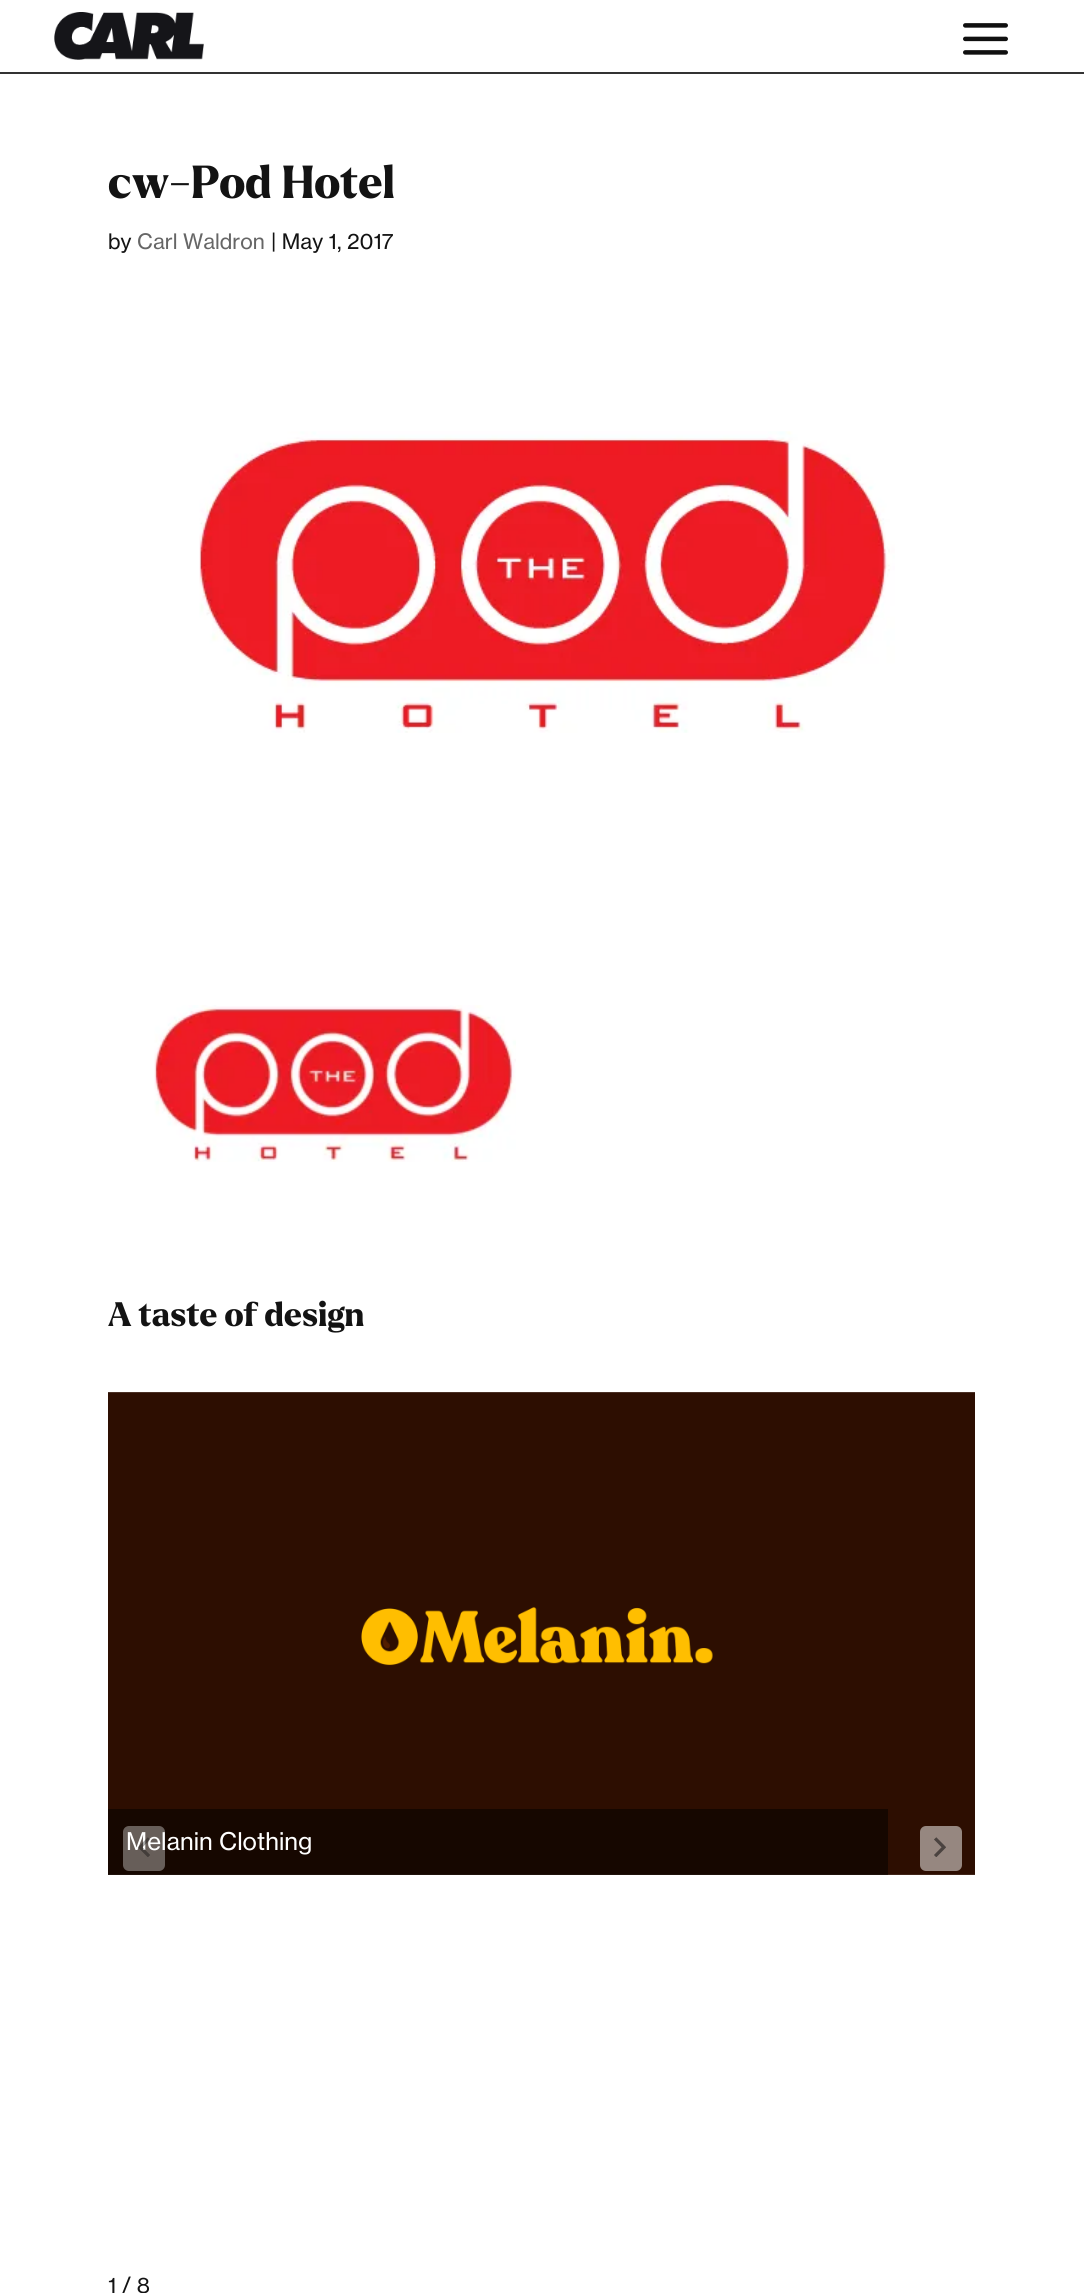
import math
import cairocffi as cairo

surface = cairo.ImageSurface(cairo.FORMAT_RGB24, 1084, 2293)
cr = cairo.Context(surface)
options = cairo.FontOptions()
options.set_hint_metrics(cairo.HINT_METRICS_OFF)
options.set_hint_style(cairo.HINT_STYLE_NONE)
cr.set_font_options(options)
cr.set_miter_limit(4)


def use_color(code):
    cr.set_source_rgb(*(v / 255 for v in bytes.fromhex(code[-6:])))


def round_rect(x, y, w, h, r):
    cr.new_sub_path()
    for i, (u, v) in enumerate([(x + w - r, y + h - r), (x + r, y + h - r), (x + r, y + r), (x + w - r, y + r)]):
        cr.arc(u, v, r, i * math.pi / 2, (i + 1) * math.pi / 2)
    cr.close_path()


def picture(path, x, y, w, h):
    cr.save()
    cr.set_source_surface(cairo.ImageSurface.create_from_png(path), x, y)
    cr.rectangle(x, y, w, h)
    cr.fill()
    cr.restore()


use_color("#ffffff")
cr.paint()
use_color("#333333")
cr.rectangle(0, 72, 1084, 2)
cr.fill()
picture("img1.png", 54, 12, 150, 48)
picture("img2.png", 963, 23, 45, 32)
cr.select_font_face("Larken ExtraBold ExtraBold")
cr.set_font_size(45)
use_color("#131313")
cr.move_to(108, 198)
cr.show_text("cw-Pod Hotel")
cr.select_font_face("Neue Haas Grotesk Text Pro")
cr.set_font_size(21)
cr.move_to(108, 249)
cr.show_text("by")
use_color("#666666")
cr.move_to(137, 249)
cr.show_text("Carl Waldron")
use_color("#131313")
cr.move_to(271, 249)
cr.show_text("| May 1, 2017")
picture("img3.png", 199, 431, 696, 302)
picture("img4.png", 154, 1005, 362, 157)
cr.select_font_face("Larken ExtraBold ExtraBold")
cr.set_font_size(33)
cr.move_to(108, 1326)
cr.show_text("A taste of design")
picture("img7.png", 108, 1392, 867, 483)
cr.set_source_rgba(0, 0, 0, 0.5)
cr.rectangle(108, 1809, 780, 66)
cr.fill()
cr.select_font_face("Neue Haas Grotesk Text Pro")
cr.set_font_size(24)
use_color("#ffffff")
cr.move_to(126, 1850)
cr.show_text("Melanin Clothing")
cr.set_source_rgba(1, 1, 1, 0.35)
round_rect(123, 1826, 42, 45, 6)
cr.fill()
picture("img5.png", 138, 1837, 12, 20)
use_color("#968780")
round_rect(920, 1826, 42, 45, 6)
cr.fill()
picture("img6.png", 934, 1837, 12, 20)
cr.set_font_size(21)
use_color("#131313")
cr.move_to(108, 2293)
cr.show_text("1 / 8")
surface.write_to_png("result.png")
